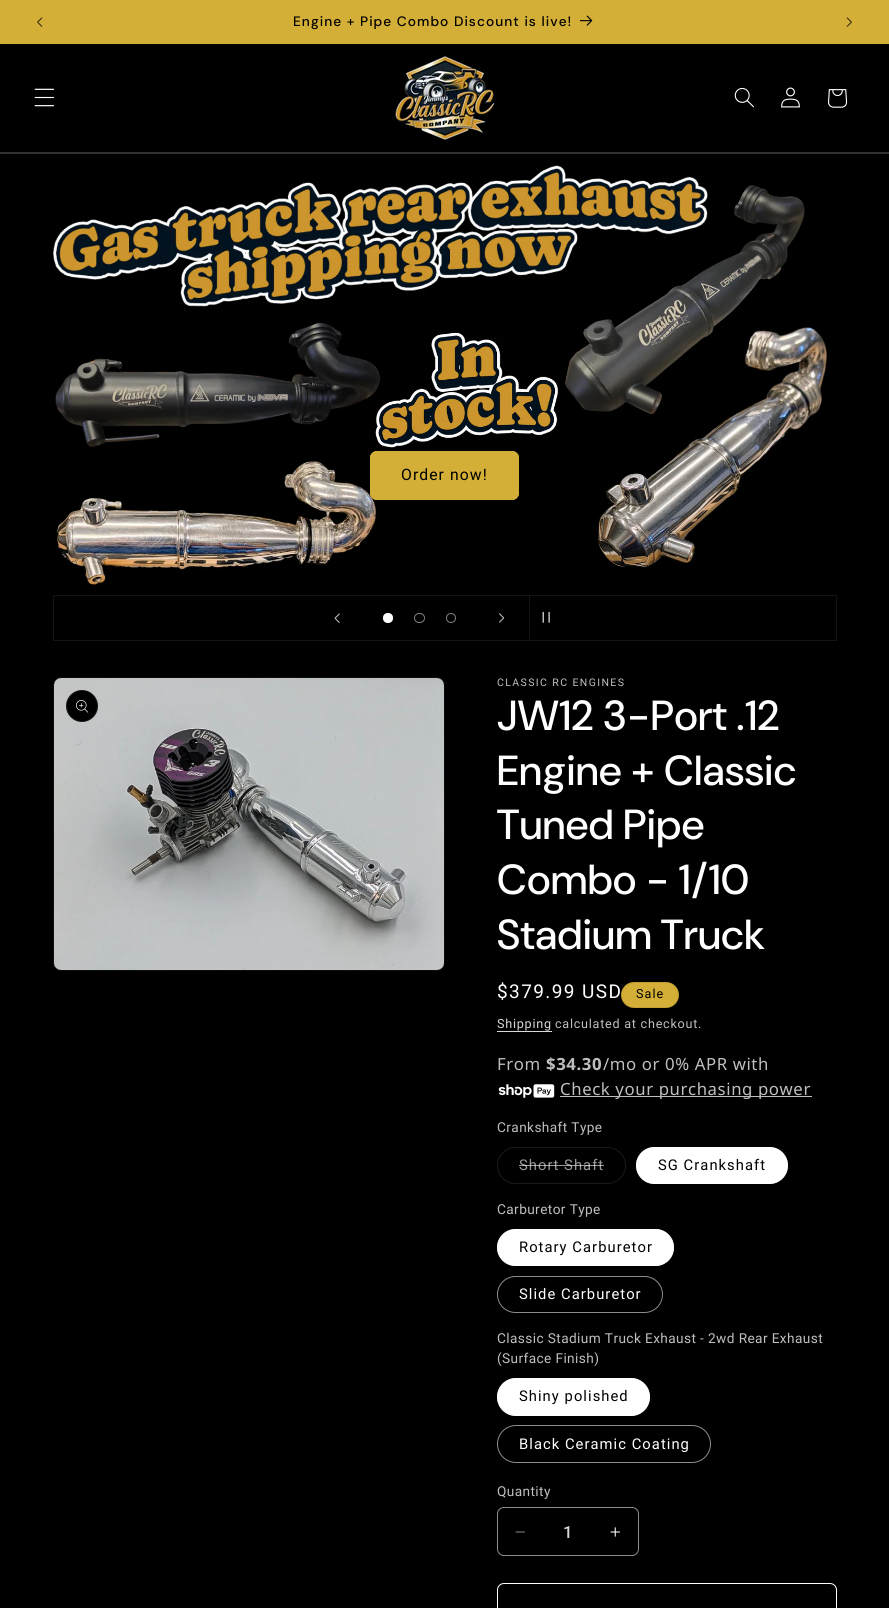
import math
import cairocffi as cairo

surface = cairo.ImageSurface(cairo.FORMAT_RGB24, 889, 1608)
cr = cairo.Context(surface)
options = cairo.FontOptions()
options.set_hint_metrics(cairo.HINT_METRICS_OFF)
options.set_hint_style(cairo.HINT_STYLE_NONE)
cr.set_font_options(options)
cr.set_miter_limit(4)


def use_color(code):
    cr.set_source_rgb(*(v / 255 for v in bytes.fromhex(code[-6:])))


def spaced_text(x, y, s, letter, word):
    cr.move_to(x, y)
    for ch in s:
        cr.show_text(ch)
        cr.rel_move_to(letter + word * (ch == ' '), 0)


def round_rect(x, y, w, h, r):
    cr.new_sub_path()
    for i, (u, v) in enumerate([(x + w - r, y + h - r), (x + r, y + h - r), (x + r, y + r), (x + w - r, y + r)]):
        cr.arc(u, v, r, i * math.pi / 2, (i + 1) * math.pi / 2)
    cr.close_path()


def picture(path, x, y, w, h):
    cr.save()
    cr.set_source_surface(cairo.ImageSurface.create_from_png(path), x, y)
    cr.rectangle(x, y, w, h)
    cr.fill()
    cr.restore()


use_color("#000000")
cr.paint()
use_color("#d4af37")
cr.rectangle(0, 0, 889, 44)
cr.fill()
picture("img1.png", 37, 17, 6, 10)
cr.select_font_face("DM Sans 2 Medium")
cr.set_font_size(13.65)
use_color("#000000")
spaced_text(293, 26, "Engine + Pipe Combo Discount is live!", 1.05, 0)
picture("img2.png", 580, 15, 13, 11)
picture("img3.png", 846, 17, 6, 10)
use_color("#333333")
cr.rectangle(0, 152, 889, 2)
cr.fill()
picture("img4.png", 34, 88, 20, 19)
picture("img5.png", 395, 56, 100, 84)
picture("img6.png", 734, 87, 20, 21)
picture("img7.png", 781, 87, 19, 21)
picture("img8.png", 828, 89, 20, 19)
picture("img9.png", 53, 154, 784, 441)
use_color("#d4af37")
round_rect(370, 451, 149, 49, 7)
cr.fill()
round_rect(370.5, 451.5, 148, 48, 6.5)
cr.set_line_width(1)
cr.stroke()
cr.select_font_face("Roboto")
cr.set_font_size(15.75)
use_color("#000000")
spaced_text(401, 480, "Order now!", 1.05, 0)
cr.rectangle(53.5, 595.5, 783, 45)
use_color("#141414")
cr.stroke()
picture("img10.png", 334, 613, 6, 10)
use_color("#ffffff")
cr.arc(388, 618, 5, 0, 2 * math.pi)
cr.fill()
cr.arc(388, 618, 4.5, 0, 2 * math.pi)
cr.set_source_rgba(1, 1, 1, 0.5)
cr.stroke()
round_rect(414.5, 613.5, 10, 9, 4.5)
use_color("#808080")
cr.stroke()
cr.arc(451, 618, 4.5, 0, 2 * math.pi)
cr.stroke()
picture("img11.png", 499, 613, 5, 10)
use_color("#141414")
cr.rectangle(529, 596, 1, 44)
cr.fill()
picture("img12.png", 542, 611, 8, 12)
round_rect(53.5, 677.5, 391, 293, 7.5)
use_color("#0d0d0d")
cr.stroke()
picture("img13.png", 54, 678, 390, 292)
use_color("#000000")
cr.arc(82, 706, 16, 0, 2 * math.pi)
cr.fill()
cr.arc(82, 706, 15.5, 0, 2 * math.pi)
cr.set_source_rgba(1, 1, 1, 0.1)
cr.stroke()
picture("img14.png", 76, 700, 12, 13)
cr.set_font_size(10.5)
use_color("#bfbfbf")
spaced_text(497, 686, "CLASSIC RC ENGINES", 1.4, 0)
cr.select_font_face("DM Sans Medium")
cr.set_font_size(42)
use_color("#ffffff")
spaced_text(497, 730, "JW12 3-Port .12", 0.6, 0)
spaced_text(497, 785, "Engine + Classic", 0.6, 0)
spaced_text(497, 839, "Tuned Pipe", 0.6, 0)
spaced_text(497, 894, "Combo - 1/10", 0.6, 0)
spaced_text(497, 949, "Stadium Truck", 0.6, 0)
cr.select_font_face("Roboto")
cr.set_font_size(19)
spaced_text(497, 998, "$379.99 USD", 1.4, 0)
use_color("#d4af37")
round_rect(621, 982, 58, 26, 13)
cr.fill()
round_rect(621.5, 982.5, 57, 25, 12.5)
cr.set_source_rgba(0, 0, 0, 0.1)
cr.stroke()
cr.set_font_size(12.6)
use_color("#000000")
spaced_text(636, 998, "Sale", 1.05, 0)
use_color("#d9d9d9")
spaced_text(497, 1028, "Shipping", 0.75, 0)
cr.rectangle(497, 1031, 55, 1)
cr.fill()
use_color("#bfbfbf")
spaced_text(555, 1028, "calculated at checkout.", 0.75, 0)
cr.select_font_face("Noto Sans")
cr.set_font_size(16.75)
spaced_text(497, 1070, "From", 0.6, 0)
cr.select_font_face("Noto Sans", cairo.FONT_SLANT_NORMAL, cairo.FONT_WEIGHT_BOLD)
spaced_text(546, 1070, "$34.30", 0.6, 0)
cr.select_font_face("Noto Sans")
spaced_text(603, 1070, "/mo or 0% APR with", 0.6, 0)
picture("img15.png", 498, 1084, 57, 14)
cr.rectangle(560, 1096, 252, 1)
cr.fill()
spaced_text(560, 1095, "Check your purchasing power", 0.6, 0)
cr.select_font_face("Roboto")
cr.set_font_size(13.65)
spaced_text(497, 1132, "Crankshaft Type", 0.4, 0)
round_rect(497.5, 1147.5, 128, 36, 18)
use_color("#1a1a1a")
cr.stroke()
cr.set_font_size(14.75)
use_color("#999999")
spaced_text(519, 1170, "Short Shaft", 1.05, 0)
cr.set_source_rgba(1, 1, 1, 0.6)
cr.rectangle(519, 1165, 85, 1)
cr.fill()
use_color("#ffffff")
round_rect(636, 1147, 152, 37, 18.5)
cr.fill()
round_rect(636.5, 1147.5, 151, 36, 18)
cr.set_source_rgba(1, 1, 1, 0.55)
cr.stroke()
use_color("#000000")
spaced_text(658, 1170, "SG Crankshaft", 1.05, 0)
cr.set_font_size(13.65)
use_color("#bfbfbf")
spaced_text(497, 1214, "Carburetor Type", 0.4, 0)
use_color("#ffffff")
round_rect(497, 1229, 177, 37, 18.5)
cr.fill()
round_rect(497.5, 1229.5, 176, 36, 18)
cr.set_source_rgba(1, 1, 1, 0.55)
cr.stroke()
cr.set_font_size(14.75)
use_color("#000000")
spaced_text(519, 1252, "Rotary Carburetor", 1.05, 0)
round_rect(497.5, 1276.5, 165, 36, 18)
use_color("#8c8c8c")
cr.stroke()
use_color("#ffffff")
spaced_text(519, 1299, "Slide Carburetor", 1.05, 0)
cr.set_font_size(13.65)
use_color("#bfbfbf")
spaced_text(497, 1343, "Classic Stadium Truck Exhaust - 2wd Rear Exhaust", 0.4, 0)
spaced_text(497, 1363, "(Surface Finish)", 0.4, 0)
use_color("#ffffff")
round_rect(497, 1378, 153, 38, 19)
cr.fill()
round_rect(497.5, 1378.5, 152, 37, 18.5)
cr.set_source_rgba(1, 1, 1, 0.55)
cr.stroke()
cr.set_font_size(14.75)
use_color("#000000")
spaced_text(519, 1401, "Shiny polished", 1.05, 0)
round_rect(497.5, 1425.5, 213, 37, 18.5)
use_color("#8c8c8c")
cr.stroke()
use_color("#ffffff")
spaced_text(519, 1449, "Black Ceramic Coating", 1.05, 0)
cr.set_font_size(13.65)
use_color("#bfbfbf")
spaced_text(497, 1496, "Quantity", 0.4, 0)
picture("img16.png", 515, 1531, 10, 2)
picture("img17.png", 610, 1527, 10, 10)
round_rect(497.5, 1507.5, 141, 48, 6.5)
use_color("#8c8c8c")
cr.stroke()
cr.select_font_face("Roboto Medium")
cr.set_font_size(16.75)
use_color("#d9d9d9")
cr.move_to(563, 1538)
cr.show_text("1")
round_rect(497.5, 1583.5, 339, 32, 6.5)
use_color("#ffffff")
cr.stroke()
surface.write_to_png("result.png")
